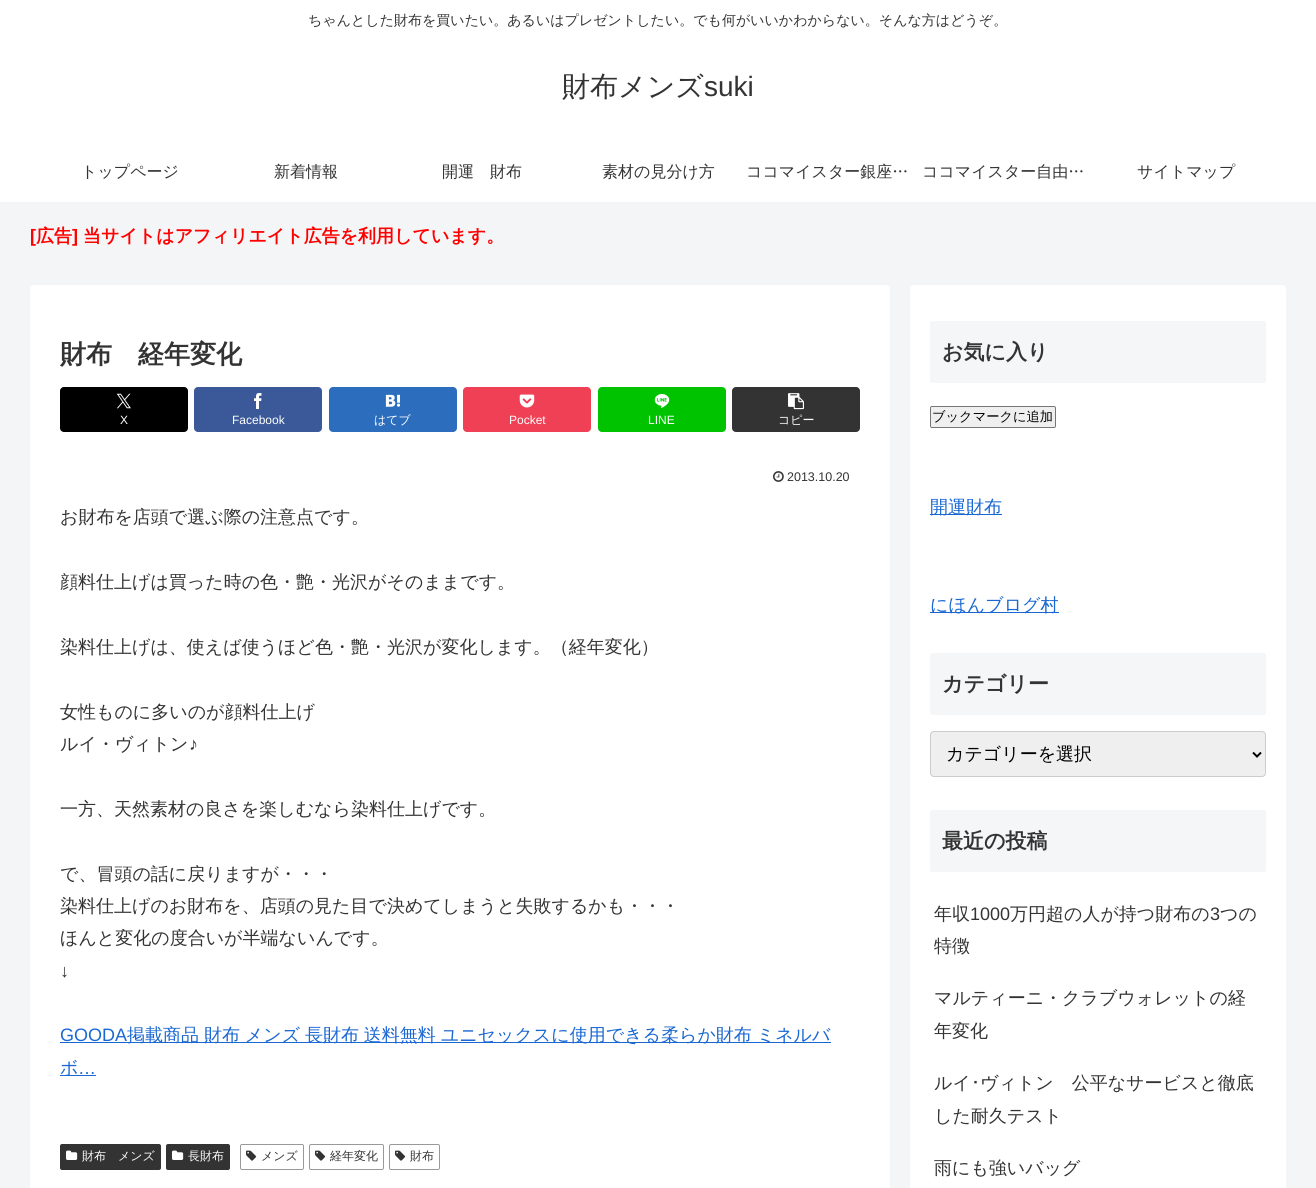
import math
import cairocffi as cairo

surface = cairo.ImageSurface(cairo.FORMAT_RGB24, 1316, 1188)
cr = cairo.Context(surface)
options = cairo.FontOptions()
options.set_hint_metrics(cairo.HINT_METRICS_OFF)
options.set_hint_style(cairo.HINT_STYLE_NONE)
cr.set_font_options(options)
cr.set_miter_limit(4)


def use_color(code):
    cr.set_source_rgb(*(v / 255 for v in bytes.fromhex(code[-6:])))


def spaced_text(x, y, s, letter, word):
    cr.move_to(x, y)
    for ch in s:
        cr.show_text(ch)
        cr.rel_move_to(letter + word * (ch == ' '), 0)


def round_rect(x, y, w, h, r):
    cr.new_sub_path()
    for i, (u, v) in enumerate([(x + w - r, y + h - r), (x + r, y + h - r), (x + r, y + r), (x + w - r, y + r)]):
        cr.arc(u, v, r, i * math.pi / 2, (i + 1) * math.pi / 2)
    cr.close_path()


def picture(path, x, y, w, h):
    cr.save()
    cr.set_source_surface(cairo.ImageSurface.create_from_png(path), x, y)
    cr.rectangle(x, y, w, h)
    cr.fill()
    cr.restore()


use_color("#f4f5f7")
cr.paint()
use_color("#ffffff")
cr.rectangle(0, 0, 1316, 202)
cr.fill()
cr.select_font_face("WenQuanYi Zen Hei Medium")
cr.set_font_size(14)
use_color("#333333")
cr.move_to(308, 25)
cr.show_text("ちゃんとした財布を買いたい。あるいはプレゼントしたい。でも何がいいかわからない。そんな方はどうぞ。")
cr.set_font_size(28)
cr.move_to(562, 96)
cr.show_text("財布メンズ")
cr.select_font_face("Liberation Sans")
cr.move_to(704, 96)
cr.show_text("suki")
cr.select_font_face("WenQuanYi Zen Hei Medium")
cr.set_font_size(16)
cr.move_to(81, 177)
cr.show_text("トップページ")
cr.move_to(274, 177)
cr.show_text("新着情報")
cr.move_to(442, 177)
cr.show_text("開運　財布")
cr.move_to(602, 177)
cr.show_text("素材の見分け方")
cr.move_to(746, 177)
cr.show_text("ココマイスター銀座…")
cr.move_to(922, 177)
cr.show_text("ココマイスター自由…")
cr.move_to(1137, 177)
cr.show_text("サイトマップ")
cr.select_font_face("Liberation Sans", cairo.FONT_SLANT_NORMAL, cairo.FONT_WEIGHT_BOLD)
cr.set_font_size(18)
use_color("#ff0000")
cr.move_to(30, 242)
cr.show_text("[")
cr.select_font_face("WenQuanYi Zen Hei", cairo.FONT_SLANT_NORMAL, cairo.FONT_WEIGHT_BOLD)
cr.move_to(36, 242)
cr.show_text("広告")
cr.select_font_face("Liberation Sans", cairo.FONT_SLANT_NORMAL, cairo.FONT_WEIGHT_BOLD)
cr.move_to(72, 242)
cr.show_text("]")
cr.select_font_face("WenQuanYi Zen Hei", cairo.FONT_SLANT_NORMAL, cairo.FONT_WEIGHT_BOLD)
cr.move_to(83, 242)
cr.show_text("当サイトはアフィリエイト広告を利用しています。")
use_color("#ffffff")
round_rect(30, 285, 860, 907, 4)
cr.fill()
cr.set_font_size(26)
use_color("#333333")
cr.move_to(60, 363)
cr.show_text("財布　経年変化")
use_color("#000000")
round_rect(60, 387, 128, 45, 4)
cr.fill()
picture("img1.png", 116, 393, 15, 16)
cr.select_font_face("Liberation Sans")
cr.set_font_size(12)
use_color("#ffffff")
cr.move_to(120, 424)
cr.show_text("X")
use_color("#3b5998")
round_rect(194, 387, 128, 45, 4)
cr.fill()
picture("img2.png", 254, 393, 8, 16)
use_color("#ffffff")
cr.move_to(232, 424)
cr.show_text("Facebook")
use_color("#2c6ebd")
round_rect(329, 387, 128, 45, 4)
cr.fill()
picture("img3.png", 385, 394, 16, 13)
cr.select_font_face("WenQuanYi Zen Hei Medium")
use_color("#ffffff")
cr.move_to(374, 424)
cr.show_text("はてブ")
use_color("#ef4056")
round_rect(463, 387, 128, 45, 4)
cr.fill()
picture("img4.png", 519, 394, 16, 14)
cr.select_font_face("Liberation Sans")
use_color("#ffffff")
cr.move_to(509, 424)
cr.show_text("Pocket")
use_color("#00c300")
round_rect(598, 387, 128, 45, 4)
cr.fill()
picture("img5.png", 654, 394, 16, 14)
use_color("#ffffff")
cr.move_to(648, 424)
cr.show_text("LINE")
use_color("#333333")
round_rect(732, 387, 128, 45, 4)
cr.fill()
picture("img6.png", 788, 393, 16, 17)
cr.select_font_face("WenQuanYi Zen Hei Medium")
use_color("#ffffff")
cr.move_to(778, 424)
cr.show_text("コピー")
picture("img7.png", 773, 471, 11, 11)
cr.select_font_face("Liberation Sans")
cr.set_font_size(12.5)
use_color("#333333")
cr.move_to(787, 481)
cr.show_text("2013.10.20")
cr.select_font_face("WenQuanYi Zen Hei Medium")
cr.set_font_size(18)
cr.move_to(60, 523)
cr.show_text("お財布を店頭で選ぶ際の注意点です。")
cr.move_to(60, 588)
cr.show_text("顔料仕上げは買った時の色・艶・光沢がそのままです。")
cr.move_to(60, 653)
cr.show_text("染料仕上げは、使えば使うほど色・艶・光沢が変化します。（経年変化）")
cr.move_to(60, 718)
cr.show_text("女性ものに多いのが顔料仕上げ")
cr.move_to(60, 750)
cr.show_text("ルイ・ヴィトン")
cr.select_font_face("Liberation Sans")
cr.move_to(189, 750)
cr.show_text("♪")
cr.select_font_face("WenQuanYi Zen Hei Medium")
cr.move_to(60, 815)
cr.show_text("一方、天然素材の良さを楽しむなら染料仕上げです。")
cr.move_to(60, 880)
cr.show_text("で、冒頭の話に戻りますが・・・")
cr.move_to(60, 912)
cr.show_text("染料仕上げのお財布を、店頭の見た目で決めてしまうと失敗するかも・・・")
cr.move_to(60, 944)
cr.show_text("ほんと変化の度合いが半端ないんです。")
cr.select_font_face("Liberation Sans")
cr.move_to(60, 977)
cr.show_text("↓")
use_color("#1967d2")
cr.move_to(60, 1041)
cr.show_text("GOODA")
cr.rectangle(60, 1042, 771, 1)
cr.fill()
cr.select_font_face("WenQuanYi Zen Hei Medium")
spaced_text(127, 1041, "掲載商品 財布 メンズ 長財布 送料無料 ユニセックスに使用できる柔らか財布 ミネルバ", 0, -0.5)
cr.rectangle(60, 1075, 36, 1)
cr.fill()
cr.move_to(60, 1074)
cr.show_text("ボ")
cr.select_font_face("Liberation Sans")
cr.move_to(78, 1074)
cr.show_text("…")
use_color("#333333")
round_rect(60, 1144, 101, 26, 2)
cr.fill()
picture("img8.png", 66, 1150, 12, 10)
cr.select_font_face("WenQuanYi Zen Hei Medium")
cr.set_font_size(12)
use_color("#ffffff")
cr.move_to(82, 1160)
cr.show_text("財布　メンズ")
use_color("#333333")
round_rect(166, 1144, 64, 26, 2)
cr.fill()
picture("img8.png", 172, 1150, 12, 10)
use_color("#ffffff")
cr.move_to(188, 1160)
cr.show_text("長財布")
round_rect(240.5, 1144.5, 63, 25, 1.5)
use_color("#999999")
cr.set_line_width(1)
cr.stroke()
picture("img9.png", 246, 1150, 11, 11)
use_color("#333333")
cr.move_to(261, 1160)
cr.show_text("メンズ")
round_rect(309.5, 1144.5, 74, 25, 1.5)
use_color("#999999")
cr.stroke()
picture("img9.png", 315, 1150, 11, 11)
use_color("#333333")
cr.move_to(330, 1160)
cr.show_text("経年変化")
round_rect(389.5, 1144.5, 50, 25, 1.5)
use_color("#999999")
cr.stroke()
picture("img9.png", 395, 1150, 11, 11)
use_color("#333333")
cr.move_to(410, 1160)
cr.show_text("財布")
use_color("#ffffff")
round_rect(910, 285, 376, 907, 4)
cr.fill()
use_color("#f5f6f7")
round_rect(930, 321, 336, 62, 2)
cr.fill()
cr.select_font_face("WenQuanYi Zen Hei", cairo.FONT_SLANT_NORMAL, cairo.FONT_WEIGHT_BOLD)
cr.set_font_size(21)
use_color("#333333")
cr.move_to(942, 359)
cr.show_text("お気に入り")
use_color("#efefef")
round_rect(930.5, 406.5, 125, 21, 1.5)
cr.fill_preserve()
use_color("#767676")
cr.stroke()
cr.select_font_face("WenQuanYi Zen Hei Medium")
cr.set_font_size(13.25)
use_color("#000000")
cr.move_to(932, 421)
cr.show_text("ブックマークに追加")
use_color("#1967d2")
cr.rectangle(930, 514, 72, 1)
cr.fill()
cr.set_font_size(18)
cr.move_to(930, 513)
cr.show_text("開運財布")
cr.rectangle(930, 612, 129, 1)
cr.fill()
cr.move_to(930, 611)
cr.show_text("にほんブログ村")
use_color("#f5f6f7")
round_rect(930, 653, 336, 62, 2)
cr.fill()
cr.select_font_face("WenQuanYi Zen Hei", cairo.FONT_SLANT_NORMAL, cairo.FONT_WEIGHT_BOLD)
cr.set_font_size(21)
use_color("#333333")
cr.move_to(942, 691)
cr.show_text("カテゴリー")
use_color("#efefef")
round_rect(930.5, 731.5, 335, 45, 3.5)
cr.fill_preserve()
use_color("#cccccc")
cr.stroke()
cr.new_path()
cr.move_to(1253, 752.5)
cr.line_to(1257, 756.5)
cr.line_to(1261, 752.5)
use_color("#000000")
cr.set_line_width(2)
cr.stroke()
cr.select_font_face("WenQuanYi Zen Hei Medium")
cr.set_font_size(18)
cr.move_to(946, 760)
cr.show_text("カテゴリーを選択")
use_color("#f5f6f7")
round_rect(930, 810, 336, 62, 2)
cr.fill()
cr.select_font_face("WenQuanYi Zen Hei", cairo.FONT_SLANT_NORMAL, cairo.FONT_WEIGHT_BOLD)
cr.set_font_size(21)
use_color("#333333")
cr.move_to(942, 848)
cr.show_text("最近の投稿")
cr.select_font_face("WenQuanYi Zen Hei Medium")
cr.set_font_size(18)
cr.move_to(934, 920)
cr.show_text("年収")
cr.select_font_face("Liberation Sans")
cr.move_to(970, 920)
cr.show_text("1000")
cr.select_font_face("WenQuanYi Zen Hei Medium")
cr.move_to(1010, 920)
cr.show_text("万円超の人が持つ財布の")
cr.select_font_face("Liberation Sans")
cr.move_to(1210, 920)
cr.show_text("3")
cr.select_font_face("WenQuanYi Zen Hei Medium")
cr.move_to(1220, 920)
cr.show_text("つの")
cr.move_to(934, 952)
cr.show_text("特徴")
cr.move_to(934, 1004)
cr.show_text("マルティーニ・クラブウォレットの経")
cr.move_to(934, 1037)
cr.show_text("年変化")
cr.move_to(934, 1089)
cr.show_text("ルイ")
cr.select_font_face("IPAPGothic")
cr.move_to(971, 1089)
cr.show_text("･")
cr.select_font_face("WenQuanYi Zen Hei Medium")
cr.move_to(980, 1089)
cr.show_text("ヴィトン　公平なサービスと徹底")
cr.move_to(934, 1122)
cr.show_text("した耐久テスト")
cr.move_to(934, 1174)
cr.show_text("雨にも強いバッグ")
surface.write_to_png("result.png")
